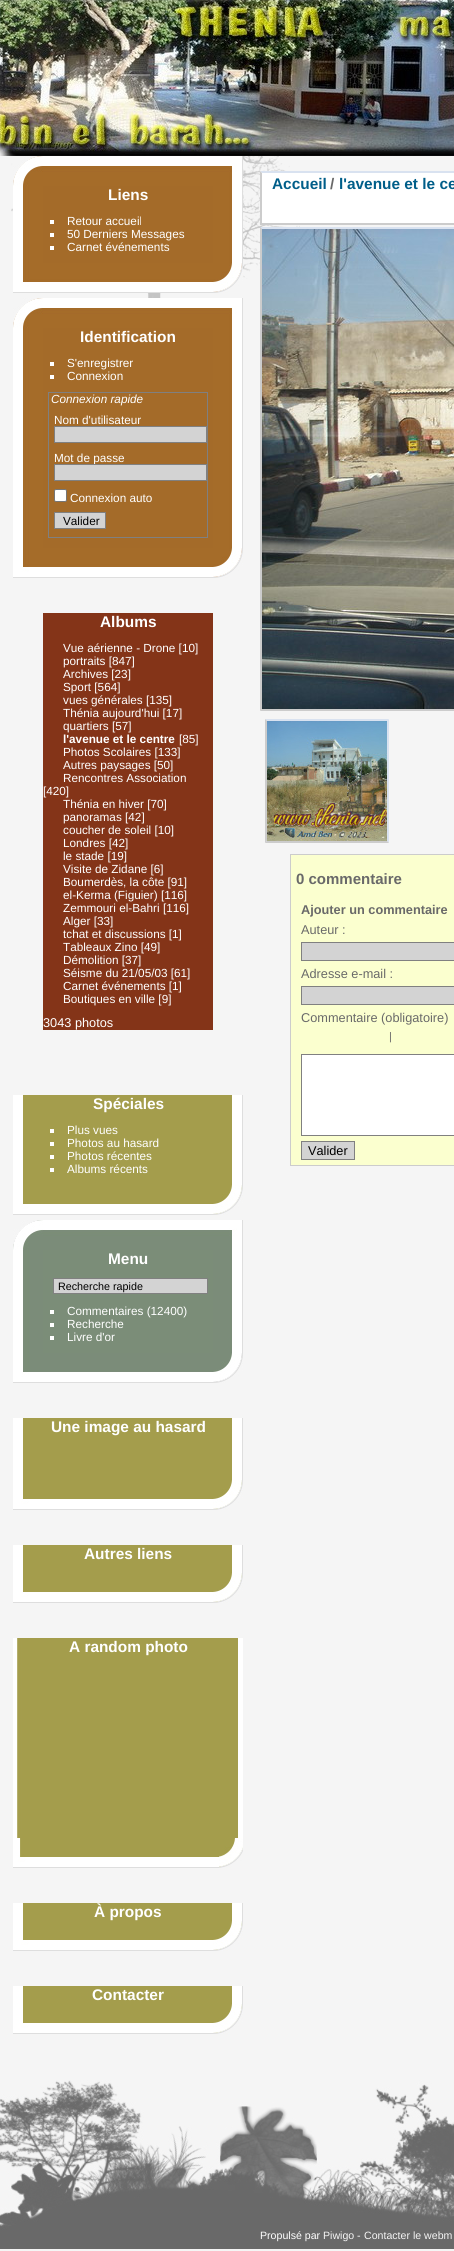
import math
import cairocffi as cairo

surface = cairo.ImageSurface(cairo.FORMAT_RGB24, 454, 2251)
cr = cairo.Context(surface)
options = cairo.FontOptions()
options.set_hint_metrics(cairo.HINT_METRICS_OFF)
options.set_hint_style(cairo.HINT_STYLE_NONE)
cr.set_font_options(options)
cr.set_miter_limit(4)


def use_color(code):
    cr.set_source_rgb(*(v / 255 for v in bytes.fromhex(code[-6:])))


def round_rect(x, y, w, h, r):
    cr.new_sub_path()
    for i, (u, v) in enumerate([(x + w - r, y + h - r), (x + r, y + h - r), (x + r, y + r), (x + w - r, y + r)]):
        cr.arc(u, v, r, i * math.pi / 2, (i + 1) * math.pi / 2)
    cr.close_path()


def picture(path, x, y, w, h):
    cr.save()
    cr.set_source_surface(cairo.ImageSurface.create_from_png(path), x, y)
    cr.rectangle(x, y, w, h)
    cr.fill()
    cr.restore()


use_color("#f5f5f5")
cr.paint()
picture("img1.png", 11, 156, 289, 142)
picture("img2.png", 0, 0, 454, 156)
picture("img3.png", 13, 156, 30, 30)
picture("img4.png", 43, 156, 170, 30)
picture("img5.png", 213, 156, 30, 30)
picture("img6.png", 13, 186, 30, 77)
use_color("#a46b29")
cr.rectangle(43, 186, 170, 77)
cr.fill()
cr.select_font_face("Liberation Sans", cairo.FONT_SLANT_NORMAL, cairo.FONT_WEIGHT_BOLD)
cr.set_font_size(15.4)
use_color("#ffffff")
cr.move_to(108, 200)
cr.show_text("Liens")
cr.rectangle(50, 220, 4, 4)
cr.fill()
cr.select_font_face("Liberation Sans")
cr.set_font_size(11.75)
cr.move_to(67, 225)
cr.show_text("Retour accueil")
cr.rectangle(50, 233, 4, 4)
cr.fill()
cr.move_to(67, 238)
cr.show_text("50 Derniers Messages")
cr.rectangle(50, 246, 4, 4)
cr.fill()
cr.move_to(67, 251)
cr.show_text("Carnet événements")
picture("img7.png", 213, 186, 30, 77)
picture("img8.png", 13, 263, 30, 30)
picture("img9.png", 43, 263, 170, 30)
picture("img10.png", 213, 263, 30, 30)
picture("img3.png", 13, 298, 30, 30)
picture("img4.png", 43, 298, 170, 30)
picture("img5.png", 213, 298, 30, 30)
picture("img11.png", 13, 328, 30, 220)
use_color("#a46b29")
cr.rectangle(43, 328, 170, 220)
cr.fill()
cr.select_font_face("Liberation Sans", cairo.FONT_SLANT_NORMAL, cairo.FONT_WEIGHT_BOLD)
cr.set_font_size(15.4)
use_color("#ffffff")
cr.move_to(80, 342)
cr.show_text("Identification")
cr.rectangle(50, 362, 4, 4)
cr.fill()
cr.select_font_face("Liberation Sans")
cr.set_font_size(11.75)
cr.move_to(67, 367)
cr.show_text("S'enregistrer")
cr.rectangle(50, 375, 4, 4)
cr.fill()
cr.move_to(67, 380)
cr.show_text("Connexion")
cr.rectangle(48.5, 392.5, 159, 145)
use_color("#808080")
cr.set_line_width(1)
cr.stroke()
cr.select_font_face("Liberation Sans", cairo.FONT_SLANT_ITALIC)
use_color("#ffffff")
cr.move_to(51, 403)
cr.show_text("Connexion rapide")
cr.select_font_face("Liberation Sans")
cr.move_to(54, 424)
cr.show_text("Nom d'utilisateur")
use_color("#d3d3d3")
cr.rectangle(54.5, 426.5, 152, 16)
cr.fill_preserve()
use_color("#808080")
cr.stroke()
use_color("#ffffff")
cr.move_to(54, 462)
cr.show_text("Mot de passe")
use_color("#d3d3d3")
cr.rectangle(54.5, 464.5, 152, 16)
cr.fill_preserve()
use_color("#808080")
cr.stroke()
use_color("#ffffff")
round_rect(54.5, 489.5, 12, 12, 1.5)
cr.fill_preserve()
use_color("#767676")
cr.stroke()
use_color("#ffffff")
cr.move_to(70, 502)
cr.show_text("Connexion auto")
use_color("#d3d3d3")
cr.rectangle(54.5, 512.5, 51, 16)
cr.fill_preserve()
use_color("#808080")
cr.stroke()
use_color("#000000")
cr.move_to(63, 525)
cr.show_text("Valider")
picture("img12.png", 213, 328, 30, 220)
picture("img8.png", 13, 548, 30, 30)
picture("img9.png", 43, 548, 170, 30)
picture("img10.png", 213, 548, 30, 30)
use_color("#843418")
cr.rectangle(43, 613, 170, 417)
cr.fill()
cr.select_font_face("Liberation Sans", cairo.FONT_SLANT_NORMAL, cairo.FONT_WEIGHT_BOLD)
cr.set_font_size(15.4)
use_color("#ffffff")
cr.move_to(100, 627)
cr.show_text("Albums")
cr.select_font_face("Liberation Sans")
cr.set_font_size(11.75)
cr.move_to(63, 652)
cr.show_text("Vue aérienne - Drone [10]")
cr.move_to(63, 665)
cr.show_text("portraits [847]")
cr.move_to(63, 678)
cr.show_text("Archives [23]")
cr.move_to(63, 691)
cr.show_text("Sport [564]")
cr.move_to(63, 704)
cr.show_text("vues générales [135]")
cr.move_to(63, 717)
cr.show_text("Thénia aujourd'hui [17]")
cr.move_to(63, 730)
cr.show_text("quartiers [57]")
cr.select_font_face("Liberation Sans", cairo.FONT_SLANT_NORMAL, cairo.FONT_WEIGHT_BOLD)
cr.move_to(63, 743)
cr.show_text("l'avenue et le centre")
cr.select_font_face("Liberation Sans")
cr.move_to(179, 743)
cr.show_text("[85]")
cr.move_to(63, 756)
cr.show_text("Photos Scolaires [133]")
cr.move_to(63, 769)
cr.show_text("Autres paysages [50]")
cr.move_to(63, 782)
cr.show_text("Rencontres Association")
cr.move_to(43, 795)
cr.show_text("[420]")
cr.move_to(63, 808)
cr.show_text("Thénia en hiver [70]")
cr.move_to(63, 821)
cr.show_text("panoramas [42]")
cr.move_to(63, 834)
cr.show_text("coucher de soleil [10]")
cr.move_to(63, 847)
cr.show_text("Londres [42]")
cr.move_to(63, 860)
cr.show_text("le stade [19]")
cr.move_to(63, 873)
cr.show_text("Visite de Zidane [6]")
cr.move_to(63, 886)
cr.show_text("Boumerdès, la côte [91]")
cr.move_to(63, 899)
cr.show_text("el-Kerma (Figuier) [116]")
cr.move_to(63, 912)
cr.show_text("Zemmouri el-Bahri [116]")
cr.move_to(63, 925)
cr.show_text("Alger [33]")
cr.move_to(63, 938)
cr.show_text("tchat et discussions [1]")
cr.move_to(63, 951)
cr.show_text("Tableaux Zino [49]")
cr.move_to(63, 964)
cr.show_text("Démolition [37]")
cr.move_to(63, 977)
cr.show_text("Séisme du 21/05/03 [61]")
cr.move_to(63, 990)
cr.show_text("Carnet événements [1]")
cr.move_to(63, 1003)
cr.show_text("Boutiques en ville [9]")
cr.set_font_size(12.75)
cr.move_to(43, 1027)
cr.show_text("3043 photos")
picture("img13.png", 13, 1095, 30, 90)
use_color("#a49d4c")
cr.rectangle(43, 1095, 170, 90)
cr.fill()
cr.select_font_face("Liberation Sans", cairo.FONT_SLANT_NORMAL, cairo.FONT_WEIGHT_BOLD)
cr.set_font_size(15.4)
use_color("#ffffff")
cr.move_to(93, 1109)
cr.show_text("Spéciales")
cr.rectangle(50, 1129, 4, 4)
cr.fill()
cr.select_font_face("Liberation Sans")
cr.set_font_size(11.75)
cr.move_to(67, 1134)
cr.show_text("Plus vues")
cr.rectangle(50, 1142, 4, 4)
cr.fill()
cr.move_to(67, 1147)
cr.show_text("Photos au hasard")
cr.rectangle(50, 1155, 4, 4)
cr.fill()
cr.move_to(67, 1160)
cr.show_text("Photos récentes")
cr.rectangle(50, 1168, 4, 4)
cr.fill()
cr.move_to(67, 1173)
cr.show_text("Albums récents")
picture("img14.png", 213, 1095, 30, 90)
picture("img15.png", 13, 1185, 30, 30)
picture("img16.png", 43, 1185, 170, 30)
picture("img17.png", 213, 1185, 30, 30)
picture("img18.png", 13, 1220, 30, 30)
picture("img19.png", 43, 1220, 170, 30)
picture("img20.png", 213, 1220, 30, 30)
picture("img21.png", 13, 1250, 30, 103)
use_color("#7b8d78")
cr.rectangle(43, 1250, 170, 103)
cr.fill()
cr.select_font_face("Liberation Sans", cairo.FONT_SLANT_NORMAL, cairo.FONT_WEIGHT_BOLD)
cr.set_font_size(15.4)
use_color("#ffffff")
cr.move_to(108, 1264)
cr.show_text("Menu")
use_color("#d3d3d3")
cr.rectangle(53.5, 1278.5, 154, 15)
cr.fill_preserve()
use_color("#808080")
cr.stroke()
cr.select_font_face("Liberation Sans")
cr.set_font_size(10.75)
use_color("#000000")
cr.move_to(58, 1290)
cr.show_text("Recherche rapide")
use_color("#ffffff")
cr.rectangle(50, 1310, 4, 4)
cr.fill()
cr.set_font_size(11.75)
cr.move_to(67, 1315)
cr.show_text("Commentaires (12400)")
cr.rectangle(50, 1323, 4, 4)
cr.fill()
cr.move_to(67, 1328)
cr.show_text("Recherche")
cr.rectangle(50, 1336, 4, 4)
cr.fill()
cr.move_to(67, 1341)
cr.show_text("Livre d'or")
picture("img22.png", 213, 1250, 30, 103)
picture("img23.png", 13, 1353, 30, 30)
picture("img24.png", 43, 1353, 170, 30)
picture("img25.png", 213, 1353, 30, 30)
picture("img26.png", 13, 1418, 30, 62)
use_color("#a49d4c")
cr.rectangle(43, 1418, 170, 62)
cr.fill()
cr.select_font_face("Liberation Sans", cairo.FONT_SLANT_NORMAL, cairo.FONT_WEIGHT_BOLD)
cr.set_font_size(15.4)
use_color("#ffffff")
cr.move_to(51, 1432)
cr.show_text("Une image au hasard")
picture("img27.png", 213, 1418, 30, 62)
picture("img15.png", 13, 1480, 30, 30)
picture("img16.png", 43, 1480, 170, 30)
picture("img17.png", 213, 1480, 30, 30)
picture("img28.png", 13, 1545, 30, 28)
use_color("#a49d4c")
cr.rectangle(43, 1545, 170, 28)
cr.fill()
use_color("#ffffff")
cr.move_to(84, 1559)
cr.show_text("Autres liens")
picture("img29.png", 213, 1545, 30, 28)
picture("img15.png", 13, 1573, 30, 30)
picture("img16.png", 43, 1573, 170, 30)
picture("img17.png", 213, 1573, 30, 30)
picture("img30.png", 13, 1638, 24, 200)
use_color("#a49d4c")
cr.rectangle(37, 1638, 182, 200)
cr.fill()
use_color("#ffffff")
cr.move_to(69, 1652)
cr.show_text("A random photo")
picture("img31.png", 219, 1638, 24, 200)
picture("img32.png", 13, 1838, 24, 30)
picture("img33.png", 37, 1838, 182, 30)
picture("img34.png", 219, 1838, 24, 30)
picture("img35.png", 13, 1903, 30, 18)
use_color("#a49d4c")
cr.rectangle(43, 1903, 170, 18)
cr.fill()
use_color("#ffffff")
cr.move_to(94, 1917)
cr.show_text("À propos")
picture("img36.png", 213, 1903, 30, 18)
picture("img15.png", 13, 1921, 30, 30)
picture("img16.png", 43, 1921, 170, 30)
picture("img17.png", 213, 1921, 30, 30)
picture("img35.png", 13, 1986, 30, 18)
use_color("#a49d4c")
cr.rectangle(43, 1986, 170, 18)
cr.fill()
use_color("#ffffff")
cr.move_to(92, 2000)
cr.show_text("Contacter")
picture("img36.png", 213, 1986, 30, 18)
picture("img15.png", 13, 2004, 30, 30)
picture("img16.png", 43, 2004, 170, 30)
picture("img17.png", 213, 2004, 30, 30)
cr.rectangle(260, 171, 194, 24)
cr.fill()
use_color("#d9e2f0")
cr.new_path()
cr.move_to(260, 171)
cr.line_to(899, 171)
cr.line_to(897, 173)
cr.line_to(262, 173)
cr.close_path()
cr.fill()
use_color("#cccccc")
cr.new_path()
cr.move_to(260, 195)
cr.line_to(260, 171)
cr.line_to(262, 173)
cr.line_to(262, 195)
cr.close_path()
cr.fill()
use_color("#005e89")
cr.move_to(272, 189)
cr.show_text("Accueil")
use_color("#696969")
cr.move_to(330, 189)
cr.show_text("/")
use_color("#005e89")
cr.move_to(339, 189)
cr.show_text("l'avenue et le ce")
use_color("#ffffff")
cr.rectangle(262, 195, 192, 28)
cr.fill()
use_color("#cccccc")
cr.new_path()
cr.move_to(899, 225)
cr.line_to(260, 225)
cr.line_to(262, 223)
cr.line_to(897, 223)
cr.close_path()
cr.fill()
cr.rectangle(260, 195, 2, 30)
cr.fill()
use_color("#d9e2f0")
cr.new_path()
cr.move_to(260, 227)
cr.line_to(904, 227)
cr.line_to(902, 229)
cr.line_to(262, 229)
cr.close_path()
cr.fill()
use_color("#cccccc")
cr.new_path()
cr.move_to(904, 711)
cr.line_to(260, 711)
cr.line_to(262, 709)
cr.line_to(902, 709)
cr.close_path()
cr.fill()
cr.new_path()
cr.move_to(260, 711)
cr.line_to(260, 227)
cr.line_to(262, 229)
cr.line_to(262, 709)
cr.close_path()
cr.fill()
picture("img37.png", 262, 229, 192, 480)
use_color("#d9e2f0")
cr.new_path()
cr.move_to(265, 719)
cr.line_to(389, 719)
cr.line_to(387, 721)
cr.line_to(267, 721)
cr.close_path()
cr.fill()
cr.new_path()
cr.move_to(389, 719)
cr.line_to(389, 843)
cr.line_to(387, 841)
cr.line_to(387, 721)
cr.close_path()
cr.fill()
use_color("#cccccc")
cr.new_path()
cr.move_to(389, 843)
cr.line_to(265, 843)
cr.line_to(267, 841)
cr.line_to(387, 841)
cr.close_path()
cr.fill()
cr.new_path()
cr.move_to(265, 843)
cr.line_to(265, 719)
cr.line_to(267, 721)
cr.line_to(267, 841)
cr.close_path()
cr.fill()
picture("img38.png", 267, 721, 120, 120)
use_color("#fbffcf")
cr.rectangle(290.5, 854.5, 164, 311)
cr.fill_preserve()
use_color("#cccccc")
cr.stroke()
cr.set_font_size(15)
use_color("#696969")
cr.move_to(296, 884)
cr.show_text("0 commentaire")
cr.set_font_size(12.75)
cr.move_to(301, 914)
cr.show_text("Ajouter un commentaire")
cr.select_font_face("Liberation Sans")
cr.move_to(301, 934)
cr.show_text("Auteur :")
use_color("#d3d3d3")
cr.rectangle(301.5, 942.5, 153, 18)
cr.fill_preserve()
use_color("#808080")
cr.stroke()
use_color("#696969")
cr.move_to(301, 978)
cr.show_text("Adresse e-mail :")
use_color("#d3d3d3")
cr.rectangle(301.5, 986.5, 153, 18)
cr.fill_preserve()
use_color("#808080")
cr.stroke()
use_color("#696969")
cr.move_to(301, 1022)
cr.show_text("Commentaire (obligatoire)")
cr.set_font_size(11)
cr.move_to(389, 1040)
cr.show_text("|")
use_color("#ffffff")
cr.rectangle(301.5, 1054.5, 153, 81)
cr.fill_preserve()
use_color("#808080")
cr.stroke()
use_color("#d3d3d3")
cr.rectangle(301.5, 1141.5, 53, 18)
cr.fill_preserve()
use_color("#808080")
cr.stroke()
cr.set_font_size(12.75)
use_color("#000000")
cr.move_to(308, 1155)
cr.show_text("Valider")
picture("img39.png", 0, 2080, 454, 169)
cr.set_font_size(10.6)
use_color("#ffffff")
cr.move_to(260, 2239)
cr.show_text("Propulsé par")
use_color("#f5f5f5")
cr.move_to(323, 2239)
cr.show_text("Piwigo")
use_color("#ffffff")
cr.move_to(357, 2239)
cr.show_text("-")
use_color("#f5f5f5")
cr.move_to(364, 2239)
cr.show_text("Contacter le webm")
surface.write_to_png("result.png")
